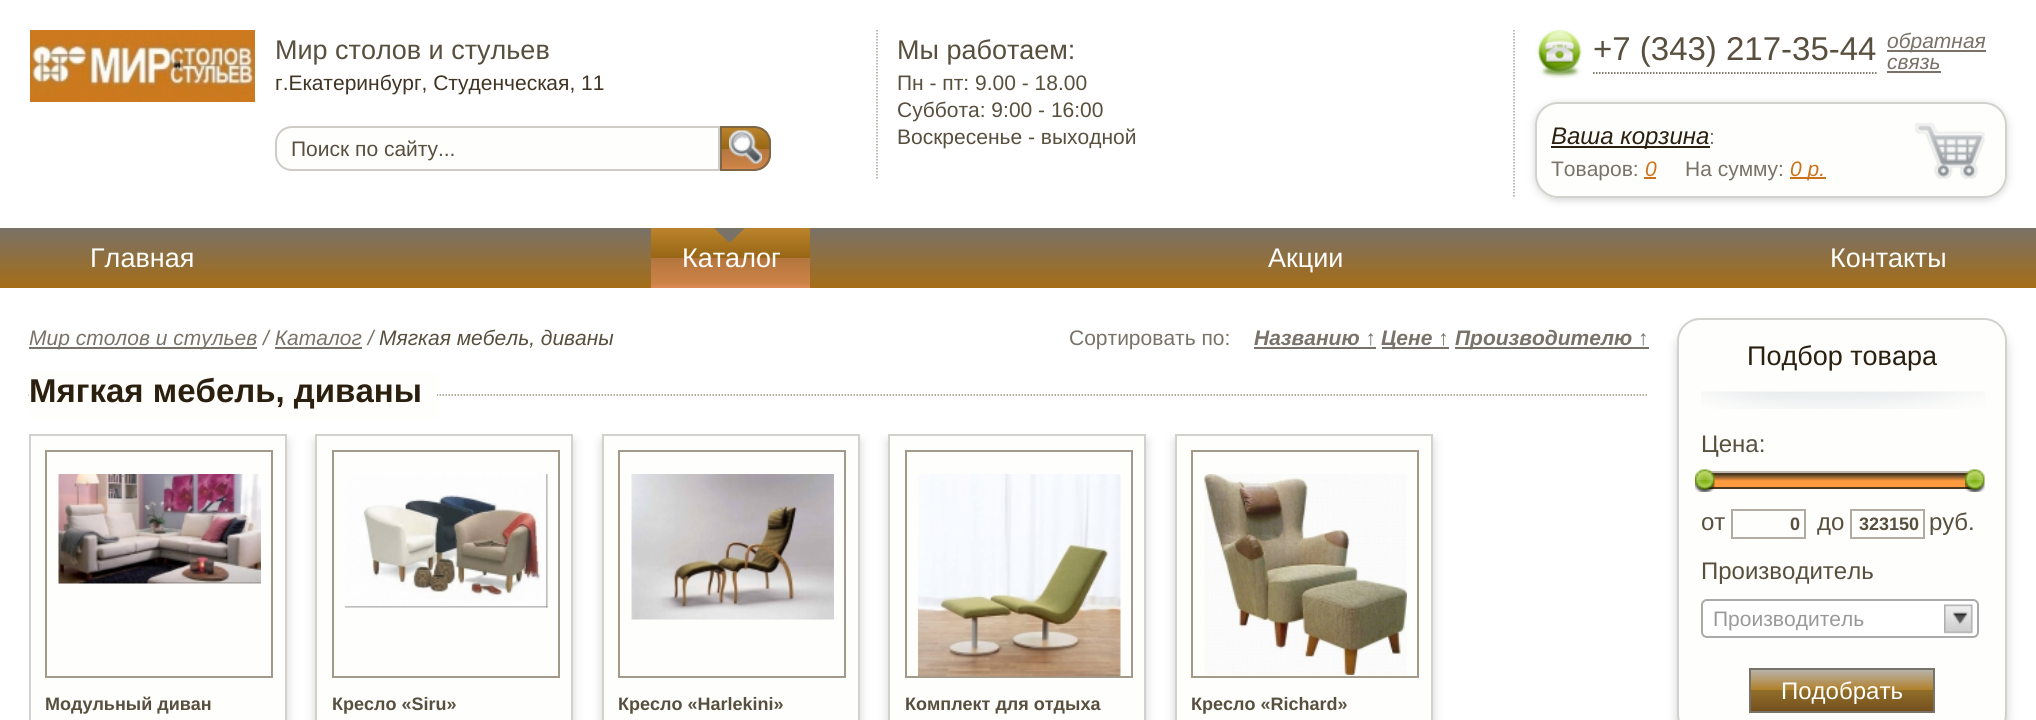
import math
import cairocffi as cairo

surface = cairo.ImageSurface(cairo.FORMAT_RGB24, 2036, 720)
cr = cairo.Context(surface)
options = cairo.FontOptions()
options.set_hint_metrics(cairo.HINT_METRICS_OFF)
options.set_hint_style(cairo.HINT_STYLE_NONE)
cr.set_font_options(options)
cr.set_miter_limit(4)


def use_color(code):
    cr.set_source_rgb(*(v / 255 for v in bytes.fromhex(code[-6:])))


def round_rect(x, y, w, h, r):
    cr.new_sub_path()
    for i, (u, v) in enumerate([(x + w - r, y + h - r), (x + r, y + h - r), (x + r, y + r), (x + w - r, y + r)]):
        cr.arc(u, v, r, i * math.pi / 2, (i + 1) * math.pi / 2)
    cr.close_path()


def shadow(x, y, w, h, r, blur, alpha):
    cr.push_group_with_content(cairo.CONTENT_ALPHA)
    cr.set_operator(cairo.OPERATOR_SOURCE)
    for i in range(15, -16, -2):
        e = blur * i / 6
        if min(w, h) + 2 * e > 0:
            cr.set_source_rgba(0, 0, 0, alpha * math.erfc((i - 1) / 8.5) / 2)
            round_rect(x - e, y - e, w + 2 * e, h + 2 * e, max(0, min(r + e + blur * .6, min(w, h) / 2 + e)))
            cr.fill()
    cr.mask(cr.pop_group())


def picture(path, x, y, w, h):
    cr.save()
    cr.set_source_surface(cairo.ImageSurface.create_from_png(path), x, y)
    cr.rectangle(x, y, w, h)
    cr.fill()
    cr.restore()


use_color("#ffffff")
cr.paint()
picture("img1.png", 30, 30, 225, 72)
cr.select_font_face("Liberation Sans")
cr.set_font_size(27)
use_color("#584f3e")
cr.move_to(275, 59)
cr.show_text("Мир столов и стульев")
cr.set_font_size(21)
use_color("#403424")
cr.move_to(275, 90)
cr.show_text("г.Екатеринбург, Студенческая, 11")
use_color("#fefefc")
cr.new_path()
cr.move_to(292, 127)
cr.line_to(719, 127)
cr.line_to(719, 170)
cr.line_to(292, 170)
cr.curve_to(283, 170, 276, 163, 276, 154)
cr.line_to(276, 143)
cr.curve_to(276, 134, 283, 127, 292, 127)
cr.close_path()
cr.fill_preserve()
use_color("#cfccc7")
cr.stroke()
use_color("#584f3e")
cr.move_to(291, 156)
cr.show_text("Поиск по сайту...")
cr.save()
cr.new_path()
cr.move_to(720, 126)
cr.line_to(754, 126)
cr.curve_to(763.5, 126, 771, 133.5, 771, 143)
cr.line_to(771, 154)
cr.curve_to(771, 163.5, 763.5, 171, 754, 171)
cr.line_to(720, 171)
cr.close_path()
cr.clip()
gradient = cairo.LinearGradient(746, 128, 746, 170)
gradient.add_color_stop_rgba(0.04, 0.725, 0.506, 0.165, 1)
gradient.add_color_stop_rgba(0.5, 0.592, 0.4, 0.078, 1)
gradient.add_color_stop_rgba(0.5, 0.702, 0.459, 0.243, 1)
gradient.add_color_stop_rgba(0.92, 0.804, 0.514, 0.275, 1)
gradient.add_color_stop_rgba(1, 0.871, 0.541, 0.345, 1)
cr.set_source(gradient)
cr.rectangle(722, 128, 49, 42)
cr.fill()
cr.restore()
cr.new_path()
cr.move_to(721, 127)
cr.line_to(754, 127)
cr.curve_to(763, 127, 770, 134, 770, 143)
cr.line_to(770, 154)
cr.curve_to(770, 163, 763, 170, 754, 170)
cr.line_to(721, 170)
cr.close_path()
use_color("#7d6644")
cr.stroke()
picture("img2.png", 729, 130, 33, 34)
cr.new_path()
cr.move_to(877, 30)
cr.line_to(877, 180)
use_color("#a8a499")
cr.set_line_width(1.5)
cr.set_dash([1.5, 1.5])
cr.stroke()
cr.set_font_size(27)
use_color("#584f3e")
cr.move_to(897, 59)
cr.show_text("Мы работаем:")
cr.set_font_size(21)
cr.move_to(897, 90)
cr.show_text("Пн - пт: 9.00 - 18.00")
cr.move_to(897, 117)
cr.show_text("Суббота: 9:00 - 16:00")
cr.move_to(897, 144)
cr.show_text("Воскресенье - выходной")
cr.new_path()
cr.move_to(1514, 30)
cr.line_to(1514, 198)
use_color("#a8a499")
cr.stroke()
picture("img3.png", 1535, 30, 47, 48)
cr.new_path()
cr.move_to(1593, 73)
cr.line_to(1876.5, 73)
use_color("#584f3e")
cr.stroke()
cr.set_font_size(33)
cr.move_to(1593, 60)
cr.show_text("+7 (343) 217-35-44")
use_color("#797268")
cr.rectangle(1887, 50, 99, 2)
cr.fill()
cr.select_font_face("Liberation Sans", cairo.FONT_SLANT_ITALIC)
cr.set_font_size(21)
cr.move_to(1887, 48)
cr.show_text("обратная")
cr.move_to(1887, 69)
cr.show_text("связь")
cr.rectangle(1887, 71, 54, 2)
cr.fill()
use_color("#d3d3d3")
shadow(1535, 104, 472, 96, 23, 4, 1)
use_color("#fefefc")
round_rect(1535, 102, 472, 96, 23)
cr.fill()
picture("img4.png", 1915, 123, 70, 56)
round_rect(1536, 103, 470, 94, 22)
use_color("#d2d1cd")
cr.set_line_width(2)
cr.set_dash([])
cr.stroke()
use_color("#2b1f0f")
cr.rectangle(1551, 146, 159, 2)
cr.fill()
cr.set_font_size(24)
cr.move_to(1551, 144)
cr.show_text("Ваша корзина")
cr.select_font_face("Liberation Sans")
cr.set_font_size(21)
use_color("#797268")
cr.move_to(1709, 144)
cr.show_text(":")
cr.move_to(1551, 176)
cr.show_text("Товаров:")
cr.select_font_face("Liberation Sans", cairo.FONT_SLANT_ITALIC)
use_color("#cc7319")
cr.move_to(1645, 176)
cr.show_text("0")
cr.rectangle(1644, 177, 12, 2)
cr.fill()
cr.select_font_face("Liberation Sans")
use_color("#797268")
cr.move_to(1685, 176)
cr.show_text("На сумму:")
use_color("#cc7319")
cr.rectangle(1790, 177, 36, 2)
cr.fill()
cr.select_font_face("Liberation Sans", cairo.FONT_SLANT_ITALIC)
cr.move_to(1790, 176)
cr.show_text("0 р.")
gradient = cairo.LinearGradient(1019, 228, 1019, 288)
gradient.add_color_stop_rgba(0, 0.475, 0.447, 0.408, 1)
gradient.add_color_stop_rgba(1, 0.647, 0.427, 0.086, 1)
cr.set_source(gradient)
cr.rectangle(0, 228, 2036, 60)
cr.fill()
cr.select_font_face("Liberation Sans")
cr.set_font_size(27)
use_color("#fefefc")
cr.move_to(90, 267)
cr.show_text("Главная")
gradient = cairo.LinearGradient(731, 228, 731, 288)
gradient.add_color_stop_rgba(0.04, 0.725, 0.506, 0.165, 1)
gradient.add_color_stop_rgba(0.5, 0.592, 0.4, 0.078, 1)
gradient.add_color_stop_rgba(0.5, 0.702, 0.459, 0.243, 1)
gradient.add_color_stop_rgba(0.92, 0.804, 0.514, 0.275, 1)
gradient.add_color_stop_rgba(1, 0.871, 0.541, 0.345, 1)
cr.set_source(gradient)
cr.rectangle(651, 228, 159, 60)
cr.fill()
cr.save()
cr.rectangle(651, 228, 159, 60)
cr.clip()
use_color("#797268")
cr.new_path()
cr.move_to(729.5, 211.5)
cr.line_to(745.5, 227.5)
cr.line_to(729.5, 243)
cr.line_to(713.5, 227.5)
cr.close_path()
cr.fill()
cr.restore()
use_color("#fefefc")
cr.move_to(682, 267)
cr.show_text("Каталог")
cr.move_to(1268, 267)
cr.show_text("Акции")
cr.move_to(1830, 267)
cr.show_text("Контакты")
use_color("#797268")
cr.rectangle(29, 347, 228, 2)
cr.fill()
cr.select_font_face("Liberation Sans", cairo.FONT_SLANT_ITALIC)
cr.set_font_size(21)
cr.move_to(29, 345)
cr.show_text("Мир столов и стульев / Каталог /")
use_color("#584f3e")
cr.move_to(379, 345)
cr.show_text("Мягкая мебель, диваны")
use_color("#797268")
cr.rectangle(275, 347, 87, 2)
cr.fill()
cr.select_font_face("Liberation Sans")
cr.move_to(1069, 345)
cr.show_text("Сортировать по:")
cr.select_font_face("Liberation Sans", cairo.FONT_SLANT_ITALIC, cairo.FONT_WEIGHT_BOLD)
cr.move_to(1254, 345)
cr.show_text("Названию ↑")
cr.rectangle(1254, 347, 122, 2)
cr.fill()
cr.rectangle(1382, 347, 67, 2)
cr.fill()
cr.move_to(1381, 345)
cr.show_text("Цене ↑")
cr.rectangle(1455, 347, 194, 2)
cr.fill()
cr.move_to(1455, 345)
cr.show_text("Производителю ↑")
cr.new_path()
cr.move_to(28.5, 395)
cr.line_to(1648.5, 395)
use_color("#9d9582")
cr.set_line_width(1.5)
cr.set_dash([1.5, 1.5])
cr.stroke()
use_color("#fefefc")
cr.rectangle(29, 372, 408, 47)
cr.fill()
cr.select_font_face("Liberation Sans", cairo.FONT_SLANT_NORMAL, cairo.FONT_WEIGHT_BOLD)
cr.set_font_size(33)
use_color("#2b1f0f")
cr.move_to(29, 402)
cr.show_text("Мягкая мебель, диваны")
cr.save()
cr.rectangle(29, 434, 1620, 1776)
cr.clip()
use_color("#d3d3d3")
shadow(29, 441, 258, 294, 0, 5, 1)
cr.restore()
use_color("#fefefc")
cr.rectangle(30, 435, 256, 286)
cr.fill_preserve()
use_color("#d2d1cd")
cr.set_line_width(2)
cr.set_dash([])
cr.stroke()
cr.rectangle(46, 451, 226, 226)
use_color("#a2998a")
cr.stroke()
picture("img5.png", 58, 474, 203, 110)
cr.set_font_size(18)
use_color("#584f3e")
cr.move_to(45, 710)
cr.show_text("Модульный диван")
cr.save()
cr.rectangle(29, 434, 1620, 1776)
cr.clip()
use_color("#d3d3d3")
shadow(315, 441, 258, 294, 0, 5, 1)
cr.restore()
use_color("#fefefc")
cr.rectangle(316, 435, 256, 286)
cr.fill_preserve()
use_color("#d2d1cd")
cr.stroke()
cr.rectangle(333, 451, 226, 226)
use_color("#a2998a")
cr.stroke()
picture("img6.png", 345, 474, 203, 134)
use_color("#584f3e")
cr.move_to(332, 710)
cr.show_text("Кресло «Siru»")
cr.save()
cr.rectangle(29, 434, 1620, 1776)
cr.clip()
use_color("#d3d3d3")
shadow(602, 441, 258, 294, 0, 5, 1)
cr.restore()
use_color("#fefefc")
cr.rectangle(603, 435, 256, 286)
cr.fill_preserve()
use_color("#d2d1cd")
cr.stroke()
cr.rectangle(619, 451, 226, 226)
use_color("#a2998a")
cr.stroke()
picture("img7.png", 631, 474, 203, 146)
use_color("#584f3e")
cr.move_to(618, 710)
cr.show_text("Кресло «Harlekini»")
cr.save()
cr.rectangle(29, 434, 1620, 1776)
cr.clip()
use_color("#d3d3d3")
shadow(888, 441, 258, 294, 0, 5, 1)
cr.restore()
use_color("#fefefc")
cr.rectangle(889, 435, 256, 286)
cr.fill_preserve()
use_color("#d2d1cd")
cr.stroke()
cr.rectangle(906, 451, 226, 226)
use_color("#a2998a")
cr.stroke()
picture("img8.png", 918, 474, 203, 203)
use_color("#584f3e")
cr.move_to(905, 710)
cr.show_text("Комплект для отдыха")
cr.save()
cr.rectangle(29, 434, 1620, 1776)
cr.clip()
use_color("#d3d3d3")
shadow(1175, 441, 258, 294, 0, 5, 1)
cr.restore()
use_color("#fefefc")
cr.rectangle(1176, 435, 256, 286)
cr.fill_preserve()
use_color("#d2d1cd")
cr.stroke()
cr.rectangle(1192, 451, 226, 226)
use_color("#a2998a")
cr.stroke()
picture("img9.png", 1204, 474, 203, 201)
use_color("#584f3e")
cr.move_to(1191, 710)
cr.show_text("Кресло «Richard»")
use_color("#d3d3d3")
shadow(1677, 326, 330, 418, 23, 5, 1)
use_color("#fefefc")
round_rect(1678, 319, 328, 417, 22)
cr.fill_preserve()
use_color("#d2d1cd")
cr.stroke()
cr.select_font_face("Liberation Sans")
cr.set_font_size(27)
use_color("#2b1f0f")
cr.move_to(1747, 365)
cr.show_text("Подбор товара")
picture("img10.png", 1701, 391, 285, 18)
cr.set_font_size(24)
use_color("#584f3e")
cr.move_to(1701, 452)
cr.show_text("Цена:")
picture("img11.png", 1969, 472, 2, 1)
round_rect(1702, 472, 271, 15, 7)
use_color("#beb7b1")
cr.stroke()
gradient = cairo.LinearGradient(1839, 474, 1839, 488)
gradient.add_color_stop_rgba(0, 0.251, 0.204, 0.141, 1)
gradient.add_color_stop_rgba(0.5, 1, 0.608, 0.243, 1)
gradient.add_color_stop_rgba(1, 1, 0.608, 0.243, 1)
cr.set_source(gradient)
cr.rectangle(1709, 475, 261, 12)
cr.fill()
cr.rectangle(1704, 474, 271, 14)
use_color("#4b3a20")
cr.stroke()
picture("img12.png", 1695, 469, 20, 23)
picture("img13.png", 1965, 469, 20, 23)
use_color("#584f3e")
cr.move_to(1701, 530)
cr.show_text("от")
cr.rectangle(1732, 510, 73, 28)
use_color("#b3aaa1")
cr.stroke()
cr.select_font_face("Liberation Sans", cairo.FONT_SLANT_NORMAL, cairo.FONT_WEIGHT_BOLD)
cr.set_font_size(18)
use_color("#584f3e")
cr.move_to(1790, 530)
cr.show_text("0")
cr.select_font_face("Liberation Sans")
cr.set_font_size(24)
cr.move_to(1817, 530)
cr.show_text("до")
cr.rectangle(1851, 510, 73, 28)
use_color("#b3aaa1")
cr.stroke()
cr.select_font_face("Liberation Sans", cairo.FONT_SLANT_NORMAL, cairo.FONT_WEIGHT_BOLD)
cr.set_font_size(18)
use_color("#584f3e")
cr.move_to(1859, 530)
cr.show_text("323150")
cr.select_font_face("Liberation Sans")
cr.set_font_size(24)
cr.move_to(1929, 530)
cr.show_text("руб.")
cr.move_to(1701, 579)
cr.show_text("Производитель")
use_color("#ffffff")
round_rect(1702, 600, 276, 37, 5)
cr.fill_preserve()
use_color("#aaaaaa")
cr.stroke()
cr.set_font_size(21)
use_color("#999999")
cr.move_to(1713, 626)
cr.show_text("Производитель")
picture("img14.png", 1944, 604, 29, 30)
gradient = cairo.LinearGradient(1842, 669, 1842, 711)
gradient.add_color_stop_rgba(0, 0.722, 0.71, 0.69, 1)
gradient.add_color_stop_rgba(0.5, 0.694, 0.502, 0.161, 1)
gradient.add_color_stop_rgba(0.5, 0.569, 0.435, 0.165, 1)
gradient.add_color_stop_rgba(1, 0.459, 0.314, 0.118, 1)
cr.set_source(gradient)
cr.rectangle(1751, 670, 182, 41)
cr.fill()
cr.rectangle(1750, 669, 184, 43)
use_color("#797268")
cr.stroke()
cr.set_font_size(24)
use_color("#fefefc")
cr.move_to(1781, 699)
cr.show_text("Подобрать")
surface.write_to_png("result.png")
